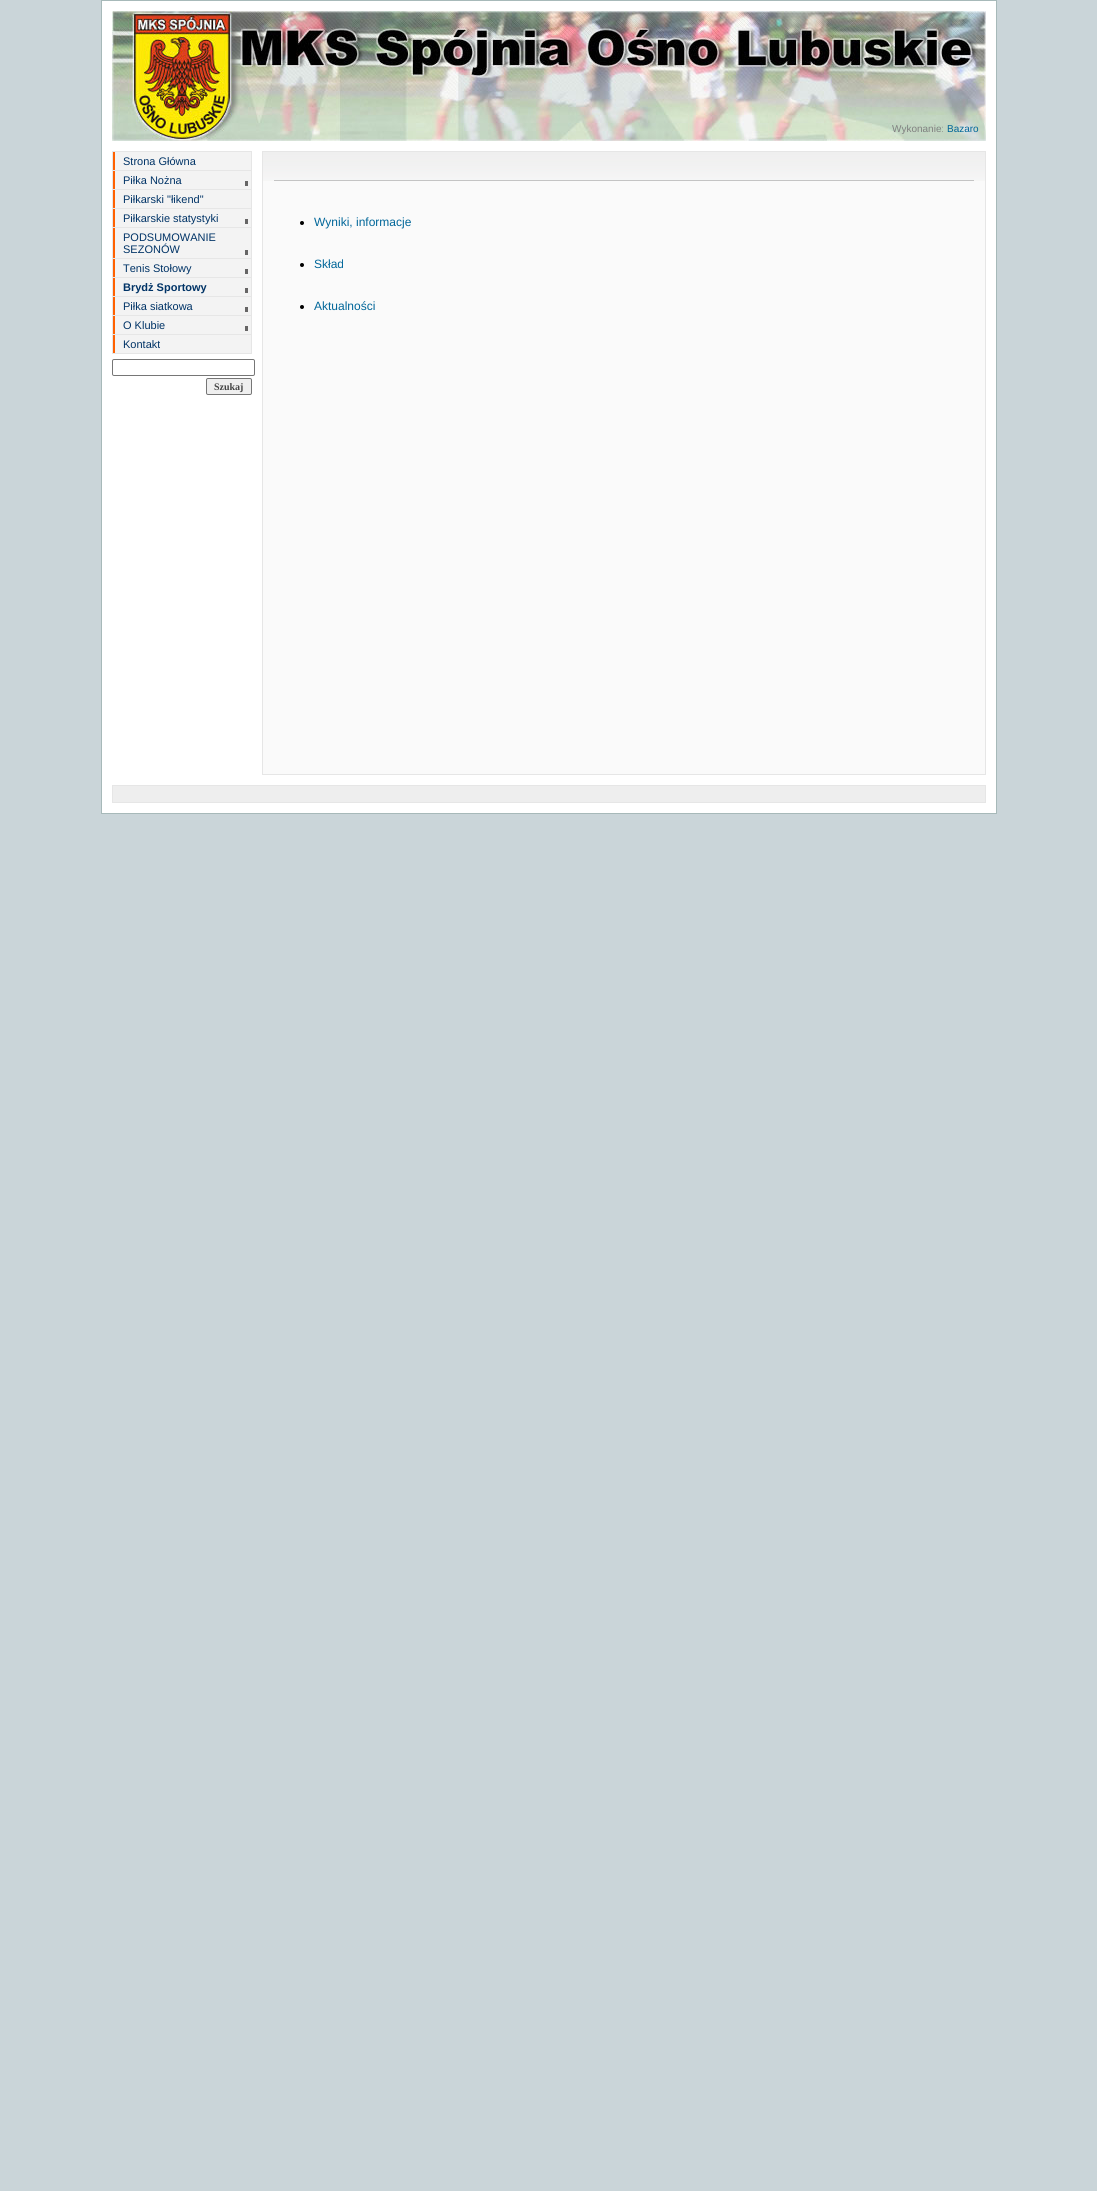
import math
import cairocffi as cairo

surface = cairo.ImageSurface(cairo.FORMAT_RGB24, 1097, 2191)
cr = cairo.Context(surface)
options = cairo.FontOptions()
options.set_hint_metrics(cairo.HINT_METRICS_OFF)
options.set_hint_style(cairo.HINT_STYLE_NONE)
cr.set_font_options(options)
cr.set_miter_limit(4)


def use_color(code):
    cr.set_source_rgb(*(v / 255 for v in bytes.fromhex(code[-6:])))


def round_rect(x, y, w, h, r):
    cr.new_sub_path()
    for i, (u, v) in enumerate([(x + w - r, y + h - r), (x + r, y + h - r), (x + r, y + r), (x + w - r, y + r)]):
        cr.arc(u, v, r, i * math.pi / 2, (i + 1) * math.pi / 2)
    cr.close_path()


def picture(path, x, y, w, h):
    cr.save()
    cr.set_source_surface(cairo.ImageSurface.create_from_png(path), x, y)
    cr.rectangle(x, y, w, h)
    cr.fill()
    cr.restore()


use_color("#cad5d9")
cr.paint()
use_color("#ffffff")
cr.rectangle(101.5, 0.5, 895, 813)
cr.fill_preserve()
use_color("#a7b9b9")
cr.set_line_width(1)
cr.stroke()
picture("img1.png", 112, 11, 874, 130)
cr.select_font_face("Liberation Sans")
cr.set_font_size(10)
use_color("#808080")
cr.move_to(892, 132)
cr.show_text("Wykonanie:")
use_color("#006699")
cr.move_to(947, 132)
cr.show_text("Bazaro")
use_color("#f3f3f3")
cr.rectangle(115, 152, 136, 201)
cr.fill()
use_color("#e6e6e6")
cr.rectangle(112, 151, 140, 1)
cr.fill()
cr.rectangle(112, 151, 1, 203)
cr.fill()
cr.rectangle(251, 152, 1, 202)
cr.fill()
cr.rectangle(113, 170, 139, 1)
cr.fill()
use_color("#ff6101")
cr.rectangle(113, 152, 2, 18)
cr.fill()
cr.set_font_size(11)
use_color("#003366")
cr.move_to(123, 165)
cr.show_text("Strona Główna")
use_color("#666565")
cr.rectangle(245, 181, 3, 5)
cr.fill()
use_color("#e6e6e6")
cr.rectangle(113, 189, 139, 1)
cr.fill()
use_color("#ff6101")
cr.rectangle(113, 171, 2, 18)
cr.fill()
use_color("#003366")
cr.move_to(123, 184)
cr.show_text("Piłka Nożna")
use_color("#e6e6e6")
cr.rectangle(113, 208, 139, 1)
cr.fill()
use_color("#ff6101")
cr.rectangle(113, 190, 2, 18)
cr.fill()
use_color("#003366")
cr.move_to(123, 203)
cr.show_text("Piłkarski \"łikend\"")
use_color("#666565")
cr.rectangle(245, 219, 3, 5)
cr.fill()
use_color("#e6e6e6")
cr.rectangle(113, 227, 139, 1)
cr.fill()
use_color("#ff6101")
cr.rectangle(113, 209, 2, 18)
cr.fill()
use_color("#003366")
cr.move_to(123, 222)
cr.show_text("Piłkarskie statystyki")
use_color("#666565")
cr.rectangle(245, 250, 3, 5)
cr.fill()
use_color("#e6e6e6")
cr.rectangle(113, 258, 139, 1)
cr.fill()
use_color("#ff6101")
cr.rectangle(113, 228, 2, 30)
cr.fill()
use_color("#003366")
cr.move_to(123, 241)
cr.show_text("PODSUMOWANIE")
cr.move_to(123, 253)
cr.show_text("SEZONÓW")
use_color("#666565")
cr.rectangle(245, 269, 3, 5)
cr.fill()
use_color("#e6e6e6")
cr.rectangle(113, 277, 139, 1)
cr.fill()
use_color("#ff6101")
cr.rectangle(113, 259, 2, 18)
cr.fill()
use_color("#003366")
cr.move_to(123, 272)
cr.show_text("Tenis Stołowy")
use_color("#666565")
cr.rectangle(245, 288, 3, 5)
cr.fill()
use_color("#e6e6e6")
cr.rectangle(113, 296, 139, 1)
cr.fill()
use_color("#ff6101")
cr.rectangle(113, 278, 2, 18)
cr.fill()
cr.select_font_face("Liberation Sans", cairo.FONT_SLANT_NORMAL, cairo.FONT_WEIGHT_BOLD)
use_color("#003366")
cr.move_to(123, 291)
cr.show_text("Brydż Sportowy")
use_color("#666565")
cr.rectangle(245, 307, 3, 5)
cr.fill()
use_color("#e6e6e6")
cr.rectangle(113, 315, 139, 1)
cr.fill()
use_color("#ff6101")
cr.rectangle(113, 297, 2, 18)
cr.fill()
cr.select_font_face("Liberation Sans")
use_color("#003366")
cr.move_to(123, 310)
cr.show_text("Piłka siatkowa")
use_color("#666565")
cr.rectangle(245, 326, 3, 5)
cr.fill()
use_color("#e6e6e6")
cr.rectangle(113, 334, 139, 1)
cr.fill()
use_color("#ff6101")
cr.rectangle(113, 316, 2, 18)
cr.fill()
use_color("#003366")
cr.move_to(123, 329)
cr.show_text("O Klubie")
use_color("#e6e6e6")
cr.rectangle(113, 353, 139, 1)
cr.fill()
use_color("#ff6101")
cr.rectangle(113, 335, 2, 18)
cr.fill()
use_color("#003366")
cr.move_to(123, 348)
cr.show_text("Kontakt")
round_rect(112.5, 359.5, 142, 16, 1.5)
use_color("#767676")
cr.stroke()
use_color("#efefef")
round_rect(206.5, 378.5, 45, 16, 1.5)
cr.fill_preserve()
use_color("#767676")
cr.stroke()
cr.select_font_face("Liberation Serif", cairo.FONT_SLANT_NORMAL, cairo.FONT_WEIGHT_BOLD)
cr.set_font_size(10)
use_color("#444444")
cr.move_to(214, 390)
cr.show_text("Szukaj")
use_color("#fafafa")
cr.rectangle(263, 181, 722, 593)
cr.fill()
picture("img2.png", 263, 152, 722, 29)
cr.rectangle(262.5, 151.5, 723, 623)
use_color("#e6e6e6")
cr.stroke()
use_color("#c4c4c4")
cr.rectangle(274, 180, 700, 1)
cr.fill()
use_color("#000000")
cr.arc(302, 223, 2, 0, 2 * math.pi)
cr.fill()
cr.select_font_face("Liberation Sans")
cr.set_font_size(12)
use_color("#006699")
cr.move_to(314, 226)
cr.show_text("Wyniki, informacje")
use_color("#000000")
cr.new_path()
cr.arc(302, 265, 2, 0, 2 * math.pi)
cr.fill()
use_color("#006699")
cr.move_to(314, 268)
cr.show_text("Skład")
use_color("#000000")
cr.new_path()
cr.arc(302, 307, 2, 0, 2 * math.pi)
cr.fill()
use_color("#006699")
cr.move_to(314, 310)
cr.show_text("Aktualności")
use_color("#eeeeee")
cr.rectangle(112.5, 785.5, 873, 17)
cr.fill_preserve()
use_color("#e6e6e6")
cr.stroke()
surface.write_to_png("result.png")
